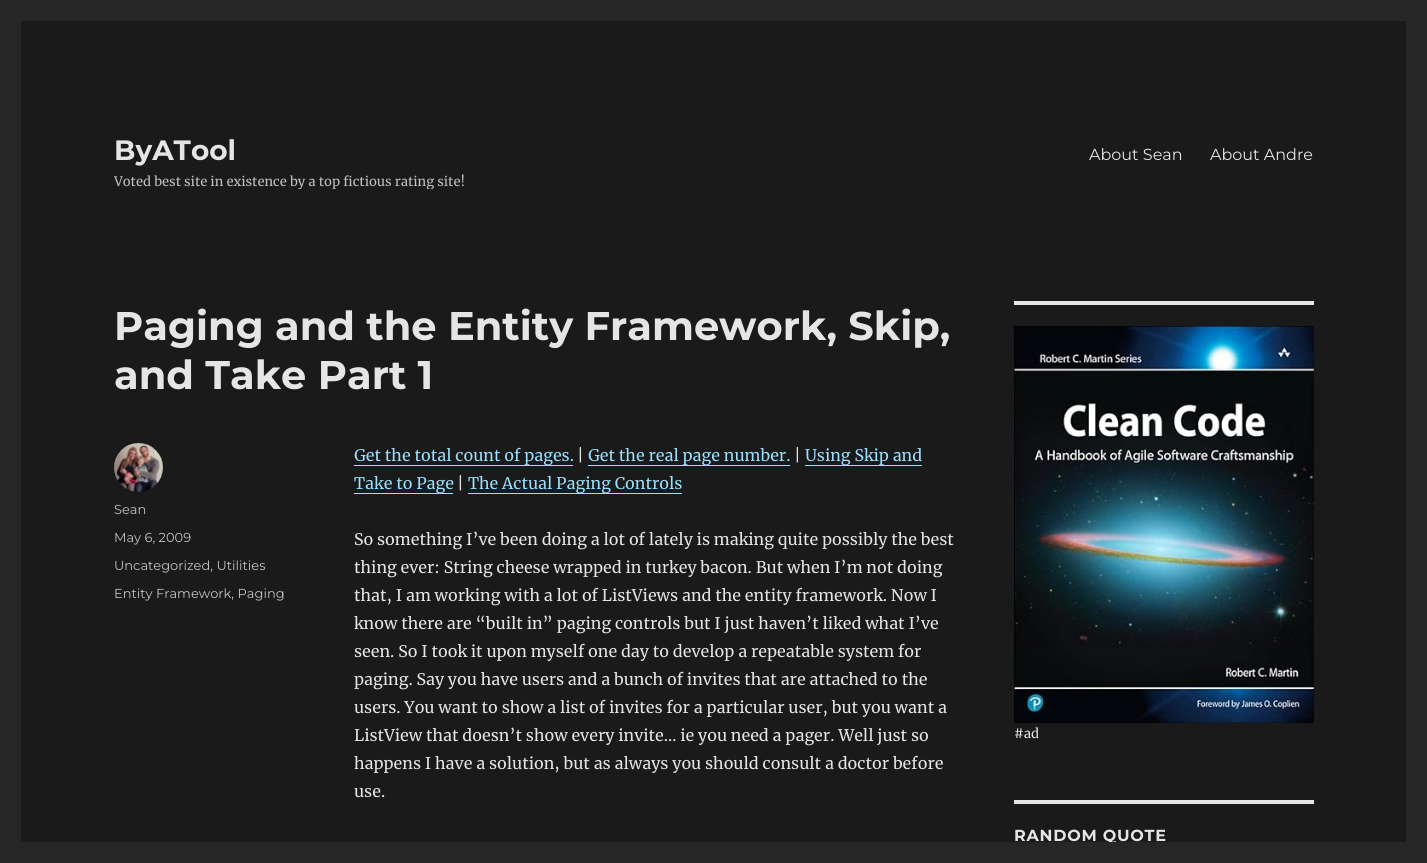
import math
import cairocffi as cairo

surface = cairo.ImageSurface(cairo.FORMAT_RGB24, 1427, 863)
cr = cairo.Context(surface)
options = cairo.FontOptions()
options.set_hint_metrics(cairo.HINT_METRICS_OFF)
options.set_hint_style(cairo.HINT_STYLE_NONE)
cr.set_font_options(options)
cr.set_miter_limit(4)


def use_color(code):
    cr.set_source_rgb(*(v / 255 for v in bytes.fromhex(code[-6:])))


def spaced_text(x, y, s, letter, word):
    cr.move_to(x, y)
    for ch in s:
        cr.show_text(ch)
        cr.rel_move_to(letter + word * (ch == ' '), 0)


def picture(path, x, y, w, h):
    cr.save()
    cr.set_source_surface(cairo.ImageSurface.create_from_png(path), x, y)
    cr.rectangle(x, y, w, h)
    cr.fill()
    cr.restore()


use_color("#262626")
cr.paint()
use_color("#1a1a1a")
cr.rectangle(21, 21, 1385, 821)
cr.fill()
cr.select_font_face("Montserrat Thin")
cr.set_font_size(28)
use_color("#e5e5e5")
cr.move_to(114, 160)
cr.show_text("ByATool")
cr.save()
cr.rectangle(114, 133, 351, 56)
cr.clip()
cr.select_font_face("Merriweather")
cr.set_font_size(13)
use_color("#c1c1c1")
cr.move_to(114, 186)
cr.show_text("Voted best site in existence by a top fictious rating site!")
cr.restore()
cr.select_font_face("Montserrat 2 Thin")
cr.set_font_size(16)
cr.move_to(1089, 160)
cr.show_text("About Sean")
cr.move_to(1210, 160)
cr.show_text("About Andre")
cr.select_font_face("Montserrat Thin")
cr.set_font_size(40)
cr.move_to(114, 340)
cr.show_text("Paging and the Entity Framework, Skip,")
cr.move_to(114, 389)
cr.show_text("and Take Part 1")
picture("img1.png", 114, 443, 49, 49)
cr.select_font_face("Montserrat 2 Thin")
cr.set_font_size(13)
use_color("#c1c1c1")
cr.move_to(114, 514)
cr.show_text("Sean")
cr.move_to(114, 542)
cr.show_text("May 6, 2009")
cr.move_to(114, 570)
cr.show_text("Uncategorized, Utilities")
cr.move_to(114, 598)
cr.show_text("Entity Framework, Paging")
use_color("#9adffd")
cr.rectangle(354, 465, 219, 1)
cr.fill()
cr.select_font_face("Merriweather")
cr.set_font_size(16)
cr.move_to(354, 461)
cr.show_text("Get the total count of pages.")
use_color("#e5e5e5")
cr.move_to(577, 461)
cr.show_text("|")
use_color("#9adffd")
cr.rectangle(588, 465, 202, 1)
cr.fill()
cr.move_to(588, 461)
cr.show_text("Get the real page number.")
use_color("#e5e5e5")
cr.move_to(794, 461)
cr.show_text("|")
use_color("#9adffd")
cr.rectangle(805, 465, 117, 1)
cr.fill()
cr.move_to(805, 461)
cr.show_text("Using Skip and")
cr.rectangle(354, 493, 99, 1)
cr.fill()
cr.move_to(354, 489)
cr.show_text("Take to Page")
use_color("#e5e5e5")
cr.move_to(457, 489)
cr.show_text("|")
use_color("#9adffd")
cr.rectangle(468, 493, 214, 1)
cr.fill()
cr.move_to(468, 489)
cr.show_text("The Actual Paging Controls")
use_color("#e5e5e5")
cr.move_to(354, 545)
cr.show_text("So something I’ve been doing a lot of lately is making quite possibly the best")
cr.move_to(354, 573)
cr.show_text("thing ever: String cheese wrapped in turkey bacon. But when I’m not doing")
cr.move_to(354, 601)
cr.show_text("that, I am working with a lot of ListViews and the entity framework. Now I")
cr.move_to(354, 629)
cr.show_text("know there are “built in” paging controls but I just haven’t liked what I’ve")
cr.move_to(354, 657)
cr.show_text("seen. So I took it upon myself one day to develop a repeatable system for")
cr.move_to(354, 685)
cr.show_text("paging. Say you have users and a bunch of invites that are attached to the")
cr.move_to(354, 713)
cr.show_text("users. You want to show a list of invites for a particular user, but you want a")
cr.move_to(354, 741)
cr.show_text("ListView that doesn’t show every invite… ie you need a pager. Well just so")
cr.move_to(354, 769)
cr.show_text("happens I have a solution, but as always you should consult a doctor before")
cr.move_to(354, 797)
cr.show_text("use.")
cr.rectangle(1014, 301, 300, 4)
cr.fill()
picture("img2.png", 1014, 326, 300, 397)
cr.set_font_size(13)
cr.move_to(1014, 738)
cr.show_text("#ad")
cr.rectangle(1014, 800, 300, 4)
cr.fill()
cr.select_font_face("Montserrat Thin")
cr.set_font_size(16)
spaced_text(1014, 841, "RANDOM QUOTE", 0.75, 0)
use_color("#262626")
cr.rectangle(1109, 842, 7, 2)
cr.fill()
surface.write_to_png("result.png")
